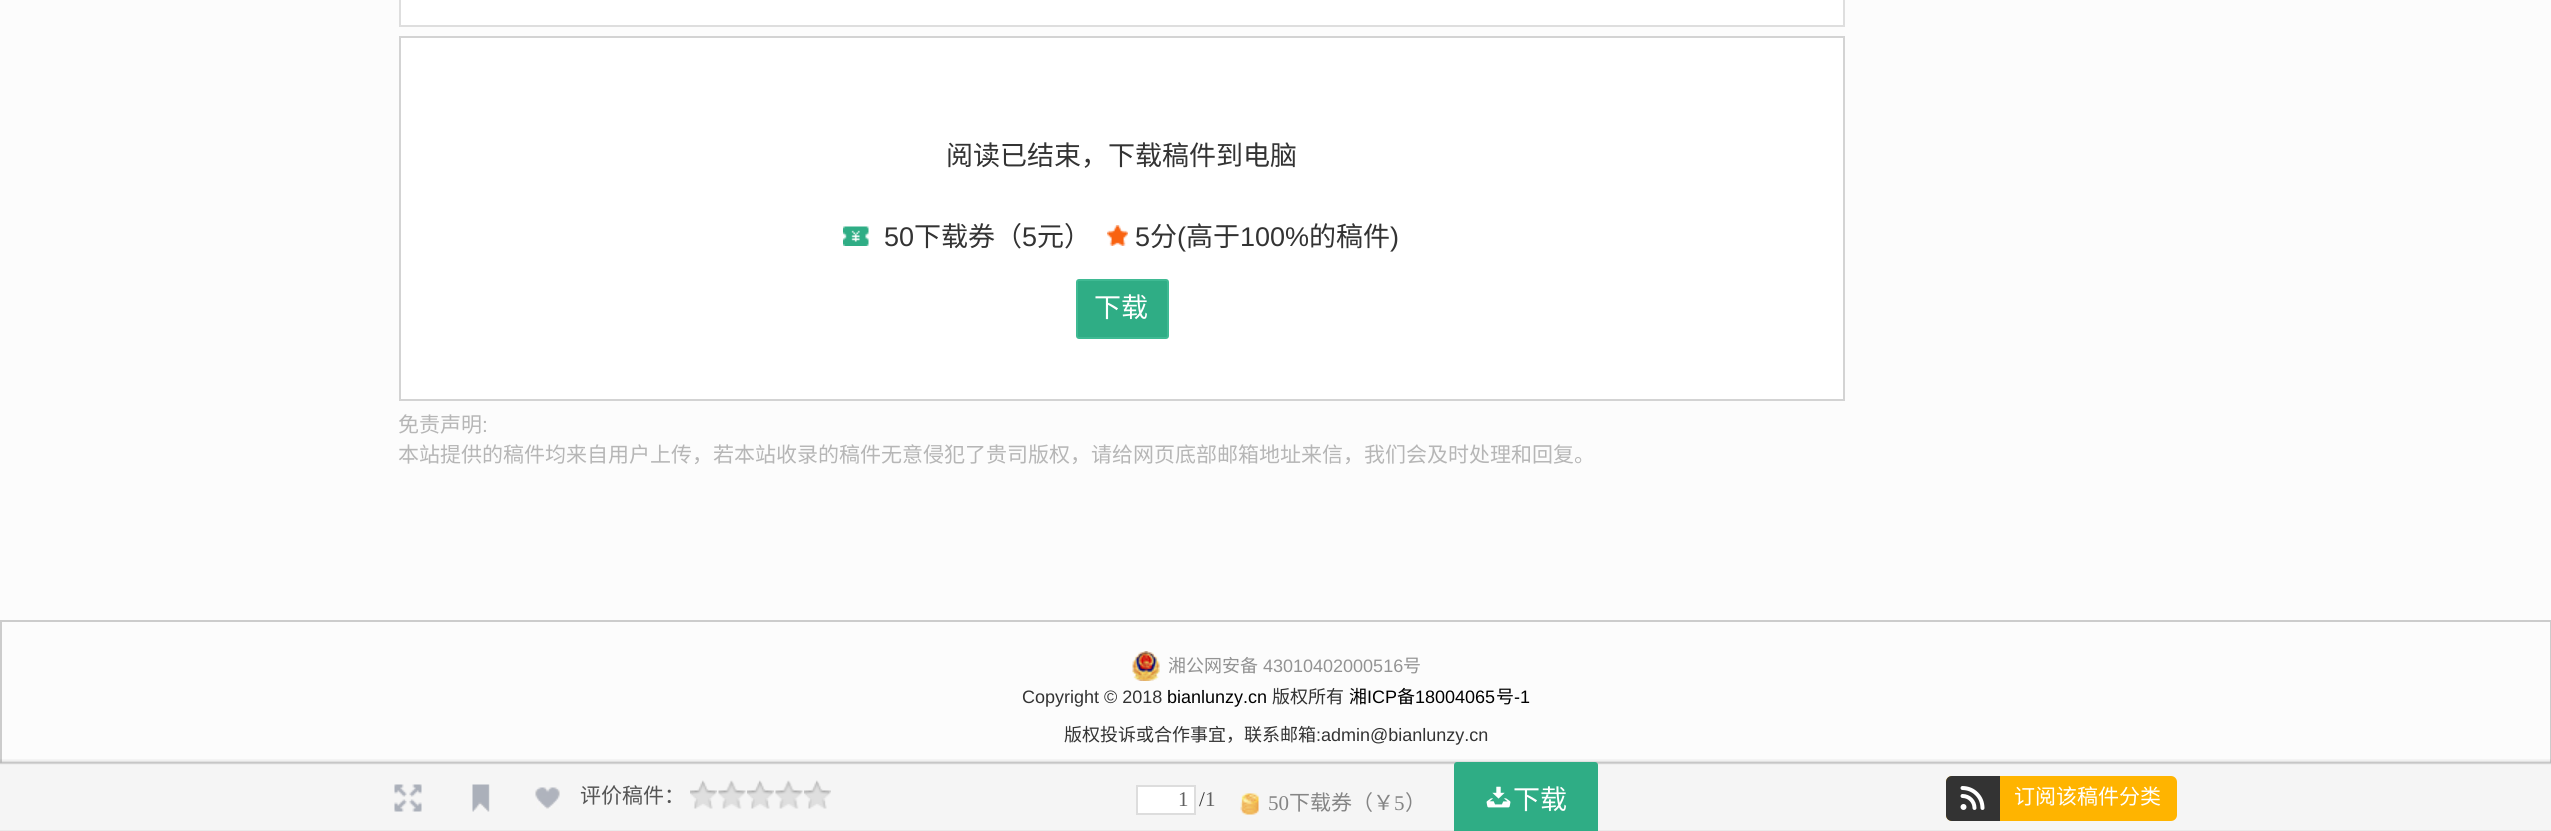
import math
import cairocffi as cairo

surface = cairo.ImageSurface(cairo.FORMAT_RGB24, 2551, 831)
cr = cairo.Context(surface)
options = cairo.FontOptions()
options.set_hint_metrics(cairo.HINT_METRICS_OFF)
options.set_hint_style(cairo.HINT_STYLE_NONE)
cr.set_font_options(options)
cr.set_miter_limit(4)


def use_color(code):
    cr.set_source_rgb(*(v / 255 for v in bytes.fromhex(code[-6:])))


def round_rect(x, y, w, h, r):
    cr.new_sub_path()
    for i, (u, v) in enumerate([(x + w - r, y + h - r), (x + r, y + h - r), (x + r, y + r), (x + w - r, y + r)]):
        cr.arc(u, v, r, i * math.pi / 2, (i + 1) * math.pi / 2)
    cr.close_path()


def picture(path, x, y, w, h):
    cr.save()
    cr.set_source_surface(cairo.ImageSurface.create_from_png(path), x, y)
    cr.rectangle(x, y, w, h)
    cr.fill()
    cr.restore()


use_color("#fcfcfc")
cr.paint()
use_color("#ffffff")
cr.rectangle(400, -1, 1444, 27)
cr.fill_preserve()
use_color("#dedede")
cr.stroke()
use_color("#ffffff")
cr.rectangle(400, 37, 1444, 363)
cr.fill_preserve()
use_color("#d3d3d3")
cr.stroke()
cr.select_font_face("Noto Sans CJK SC")
cr.set_font_size(27)
use_color("#333333")
cr.move_to(946, 165)
cr.show_text("阅读已结束，下载稿件到电脑")
picture("img1.png", 843, 226, 26, 20)
cr.select_font_face("Liberation Sans")
cr.move_to(884, 246)
cr.show_text("50")
cr.select_font_face("Noto Sans CJK SC")
cr.move_to(914, 246)
cr.show_text("下载券（")
cr.select_font_face("Liberation Sans")
cr.move_to(1022, 246)
cr.show_text("5")
cr.select_font_face("Noto Sans CJK SC")
cr.move_to(1037, 246)
cr.show_text("元）")
picture("img2.png", 1107, 225, 21, 21)
cr.select_font_face("Liberation Sans")
cr.move_to(1135, 246)
cr.show_text("5")
cr.select_font_face("Noto Sans CJK SC")
cr.move_to(1150, 246)
cr.show_text("分")
cr.select_font_face("Liberation Sans")
cr.move_to(1177, 246)
cr.show_text("(")
cr.select_font_face("Noto Sans CJK SC")
cr.move_to(1186, 246)
cr.show_text("高于")
cr.select_font_face("Liberation Sans")
cr.move_to(1240, 246)
cr.show_text("100%")
cr.select_font_face("Noto Sans CJK SC")
cr.move_to(1309, 246)
cr.show_text("的稿件")
cr.select_font_face("Liberation Sans")
cr.move_to(1390, 246)
cr.show_text(")")
use_color("#2fad85")
round_rect(1077, 280, 91, 58, 2)
cr.fill_preserve()
use_color("#3fba93")
cr.stroke()
cr.select_font_face("Noto Sans CJK SC")
use_color("#ffffff")
cr.move_to(1094, 317)
cr.show_text("下载")
cr.set_font_size(21)
use_color("#b6b6b6")
cr.move_to(398, 432)
cr.show_text("免责声明")
cr.select_font_face("Liberation Sans")
cr.move_to(482, 432)
cr.show_text(":")
cr.select_font_face("Noto Sans CJK SC")
cr.move_to(398, 462)
cr.show_text("本站提供的稿件均来自用户上传，若本站收录的稿件无意侵犯了贵司版权，请给网页底部邮箱地址来信，我们会及时处理和回复。")
cr.rectangle(1, 621, 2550, 209)
use_color("#cccccc")
cr.stroke()
picture("img3.png", 1132, 651, 28, 30)
cr.set_font_size(18)
use_color("#939393")
cr.move_to(1168, 672)
cr.show_text("湘公网安备")
cr.select_font_face("Liberation Sans")
cr.move_to(1263, 672)
cr.show_text("43010402000516")
cr.select_font_face("Noto Sans CJK SC")
cr.move_to(1403, 672)
cr.show_text("号")
cr.select_font_face("Liberation Sans")
use_color("#333333")
cr.move_to(1022, 703)
cr.show_text("Copyright © 2018")
use_color("#000000")
cr.move_to(1167, 703)
cr.show_text("bianlunzy.cn")
cr.select_font_face("Noto Sans CJK SC")
use_color("#333333")
cr.move_to(1272, 703)
cr.show_text("版权所有")
use_color("#000000")
cr.move_to(1349, 703)
cr.show_text("湘")
cr.select_font_face("Liberation Sans")
cr.move_to(1367, 703)
cr.show_text("ICP")
cr.select_font_face("Noto Sans CJK SC")
cr.move_to(1397, 703)
cr.show_text("备")
cr.select_font_face("Liberation Sans")
cr.move_to(1415, 703)
cr.show_text("18004065")
cr.select_font_face("Noto Sans CJK SC")
cr.move_to(1496, 703)
cr.show_text("号")
cr.select_font_face("Liberation Sans")
cr.move_to(1514, 703)
cr.show_text("-1")
cr.select_font_face("Noto Sans CJK SC")
use_color("#333333")
cr.move_to(1064, 741)
cr.show_text("版权投诉或合作事宜，联系邮箱")
cr.select_font_face("Liberation Sans")
cr.move_to(1316, 741)
cr.show_text(":admin@bianlunzy.cn")
picture("img4.png", 0, 759, 2551, 72)
picture("img5.png", 394, 784, 28, 28)
picture("img6.png", 472, 784, 18, 28)
picture("img7.png", 535, 787, 25, 22)
cr.select_font_face("Noto Sans CJK SC")
cr.set_font_size(21)
use_color("#555555")
cr.move_to(580, 803)
cr.show_text("评价稿件：")
picture("img8.png", 690, 780, 27, 29)
picture("img9.png", 718, 780, 28, 29)
picture("img8.png", 747, 780, 27, 29)
picture("img10.png", 775, 780, 28, 29)
picture("img8.png", 804, 780, 27, 29)
use_color("#ffffff")
cr.rectangle(1137, 786, 58, 28)
cr.fill_preserve()
use_color("#dddddd")
cr.stroke()
cr.select_font_face("Liberation Serif")
use_color("#606060")
cr.move_to(1178, 806)
cr.show_text("1")
use_color("#333333")
cr.move_to(1199, 806)
cr.show_text("/")
use_color("#606060")
cr.move_to(1205, 806)
cr.show_text("1")
picture("img11.png", 1240, 793, 19, 22)
use_color("#858585")
cr.move_to(1268, 810)
cr.show_text("50")
cr.select_font_face("Noto Sans CJK SC")
cr.move_to(1289, 810)
cr.show_text("下载券（￥")
cr.select_font_face("Liberation Serif")
cr.move_to(1394, 810)
cr.show_text("5")
cr.select_font_face("Noto Sans CJK SC")
cr.move_to(1405, 810)
cr.show_text("）")
use_color("#2fad85")
round_rect(1454, 762, 144, 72, 3)
cr.fill()
picture("img12.png", 1486, 786, 25, 22)
cr.set_font_size(27)
use_color("#ffffff")
cr.move_to(1513, 809)
cr.show_text("下载")
use_color("#ffb400")
round_rect(1946, 776, 231, 45, 6)
cr.fill()
use_color("#333333")
cr.new_path()
cr.move_to(1952, 776)
cr.line_to(2000, 776)
cr.line_to(2000, 821)
cr.line_to(1952, 821)
cr.curve_to(1948.5, 821, 1946, 818.5, 1946, 815)
cr.line_to(1946, 782)
cr.curve_to(1946, 778.5, 1948.5, 776, 1952, 776)
cr.close_path()
cr.fill()
picture("img13.png", 1960, 786, 25, 24)
cr.set_font_size(21)
use_color("#ffffff")
cr.move_to(2014, 804)
cr.show_text("订阅该稿件分类")
surface.write_to_png("result.png")
